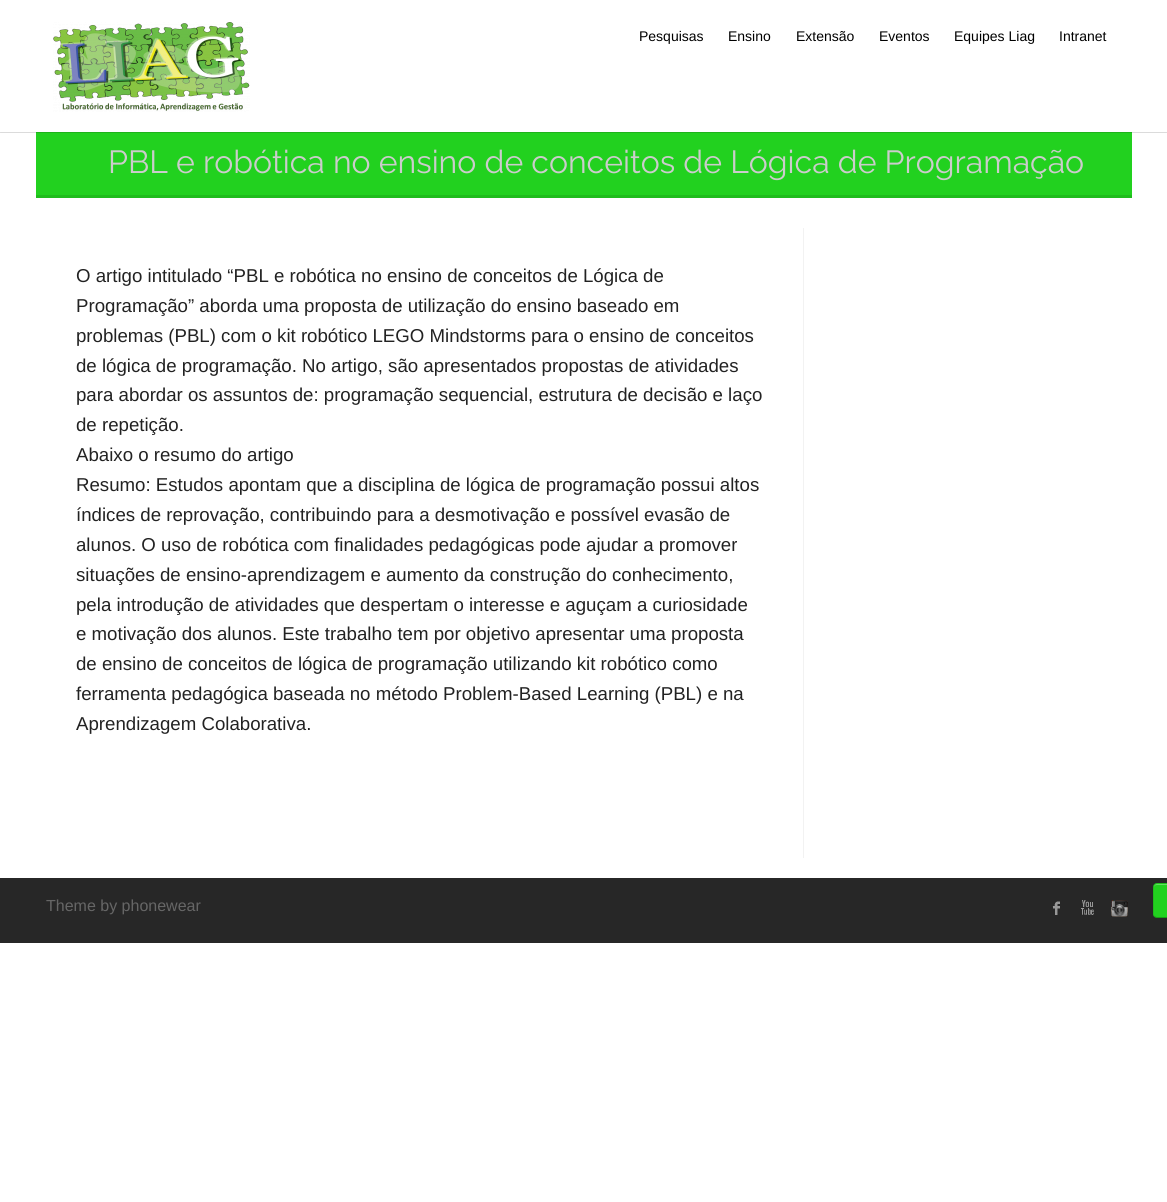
import math
import cairocffi as cairo

surface = cairo.ImageSurface(cairo.FORMAT_RGB24, 1167, 1202)
cr = cairo.Context(surface)
options = cairo.FontOptions()
options.set_hint_metrics(cairo.HINT_METRICS_OFF)
options.set_hint_style(cairo.HINT_STYLE_NONE)
cr.set_font_options(options)
cr.set_miter_limit(4)


def use_color(code):
    cr.set_source_rgb(*(v / 255 for v in bytes.fromhex(code[-6:])))


def round_rect(x, y, w, h, r):
    cr.new_sub_path()
    for i, (u, v) in enumerate([(x + w - r, y + h - r), (x + r, y + h - r), (x + r, y + r), (x + w - r, y + r)]):
        cr.arc(u, v, r, i * math.pi / 2, (i + 1) * math.pi / 2)
    cr.close_path()


def shadow(x, y, w, h, r, blur, alpha):
    cr.push_group_with_content(cairo.CONTENT_ALPHA)
    cr.set_operator(cairo.OPERATOR_SOURCE)
    for i in range(15, -16, -2):
        e = blur * i / 6
        if min(w, h) + 2 * e > 0:
            cr.set_source_rgba(0, 0, 0, alpha * math.erfc((i - 1) / 8.5) / 2)
            round_rect(x - e, y - e, w + 2 * e, h + 2 * e, max(0, min(r + e + blur * .6, min(w, h) / 2 + e)))
            cr.fill()
    cr.mask(cr.pop_group())


def picture(path, x, y, w, h):
    cr.save()
    cr.set_source_surface(cairo.ImageSurface.create_from_png(path), x, y)
    cr.rectangle(x, y, w, h)
    cr.fill()
    cr.restore()


use_color("#ffffff")
cr.paint()
use_color("#f0f0f0")
cr.rectangle(0, 132, 1167, 1)
cr.fill()
use_color("#22d11f")
cr.rectangle(36, 133, 1096, 62)
cr.fill()
use_color("#20c41d")
cr.rectangle(36, 132, 1096, 1)
cr.fill()
cr.save()
cr.rectangle(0, 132, 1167, 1)
cr.clip()
use_color("#000000")
shadow(0, 1, 1167, 132, 0, 0.5, 0.1)
cr.restore()
picture("img1.png", 53, 22, 197, 90)
cr.select_font_face("Liberation Sans")
cr.set_font_size(14)
use_color("#000000")
cr.move_to(639, 41)
cr.show_text("Pesquisas")
cr.move_to(728, 41)
cr.show_text("Ensino")
cr.move_to(796, 41)
cr.show_text("Extensão")
cr.move_to(879, 41)
cr.show_text("Eventos")
cr.move_to(954, 41)
cr.show_text("Equipes Liag")
cr.move_to(1059, 41)
cr.show_text("Intranet")
use_color("#1fbc1c")
cr.rectangle(36, 195, 1096, 3)
cr.fill()
cr.select_font_face("Raleway")
cr.set_font_size(32)
use_color("#cccccc")
cr.move_to(108, 173)
cr.show_text("PBL e robótica no ensino de conceitos de Lógica de Programação")
cr.select_font_face("Liberation Sans")
cr.set_font_size(18.65)
use_color("#222222")
cr.move_to(76, 282)
cr.show_text("O artigo intitulado “PBL e robótica no ensino de conceitos de Lógica de")
cr.move_to(76, 312)
cr.show_text("Programação” aborda uma proposta de utilização do ensino baseado em")
cr.move_to(76, 342)
cr.show_text("problemas (PBL) com o kit robótico LEGO Mindstorms para o ensino de conceitos")
cr.move_to(76, 372)
cr.show_text("de lógica de programação. No artigo, são apresentados propostas de atividades")
cr.move_to(76, 401)
cr.show_text("para abordar os assuntos de: programação sequencial, estrutura de decisão e laço")
cr.move_to(76, 431)
cr.show_text("de repetição.")
cr.move_to(76, 461)
cr.show_text("Abaixo o resumo do artigo")
cr.move_to(76, 491)
cr.show_text("Resumo: Estudos apontam que a disciplina de lógica de programação possui altos")
cr.move_to(76, 521)
cr.show_text("índices de reprovação, contribuindo para a desmotivação e possível evasão de")
cr.move_to(76, 551)
cr.show_text("alunos. O uso de robótica com finalidades pedagógicas pode ajudar a promover")
cr.move_to(76, 581)
cr.show_text("situações de ensino-aprendizagem e aumento da construção do conhecimento,")
cr.move_to(76, 611)
cr.show_text("pela introdução de atividades que despertam o interesse e aguçam a curiosidade")
cr.move_to(76, 640)
cr.show_text("e motivação dos alunos. Este trabalho tem por objetivo apresentar uma proposta")
cr.move_to(76, 670)
cr.show_text("de ensino de conceitos de lógica de programação utilizando kit robótico como")
cr.move_to(76, 700)
cr.show_text("ferramenta pedagógica baseada no método Problem-Based Learning (PBL) e na")
cr.move_to(76, 730)
cr.show_text("Aprendizagem Colaborativa.")
use_color("#f2f2f2")
cr.rectangle(803, 228, 1, 630)
cr.fill()
use_color("#272727")
cr.rectangle(0, 878, 1167, 65)
cr.fill()
cr.set_font_size(16)
use_color("#666666")
cr.move_to(46, 911)
cr.show_text("Theme by phonewear")
picture("img2.png", 1052, 901, 8, 14)
picture("img3.png", 1081, 900, 13, 15)
picture("img4.png", 1111, 900, 17, 17)
use_color("#22d11f")
round_rect(1153, 883, 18, 35, 4)
cr.fill()
use_color("#64df62")
cr.new_path()
cr.move_to(1157, 885)
cr.line_to(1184, 885)
cr.curve_to(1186, 885, 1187, 886, 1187, 888)
cr.curve_to(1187, 883, 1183.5, 884, 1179.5, 884)
cr.line_to(1161.5, 884)
cr.curve_to(1157.5, 884, 1154, 883, 1154, 888)
cr.curve_to(1154, 886, 1155, 885, 1157, 885)
cr.close_path()
cr.fill()
cr.new_path()
cr.move_to(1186.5, 916.5)
cr.curve_to(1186, 917, 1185, 917.5, 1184, 917.5)
cr.line_to(1157, 917.5)
cr.curve_to(1156, 917.5, 1155, 917, 1154.5, 916.5)
cr.set_source_rgba(0, 0, 0, 0.25)
cr.set_line_width(1)
cr.stroke()
cr.new_path()
cr.move_to(1154.5, 916.5)
cr.curve_to(1153, 915, 1153.5, 911.5, 1153.5, 909.5)
cr.line_to(1153.5, 900.5)
cr.curve_to(1153.5, 880.5, 1150.5, 883.5, 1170.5, 883.5)
cr.curve_to(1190.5, 883.5, 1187.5, 880.5, 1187.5, 900.5)
cr.line_to(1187.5, 909.5)
cr.curve_to(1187.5, 911.5, 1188, 915, 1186.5, 916.5)
cr.set_source_rgba(0, 0, 0, 0.1)
cr.stroke()
surface.write_to_png("result.png")
